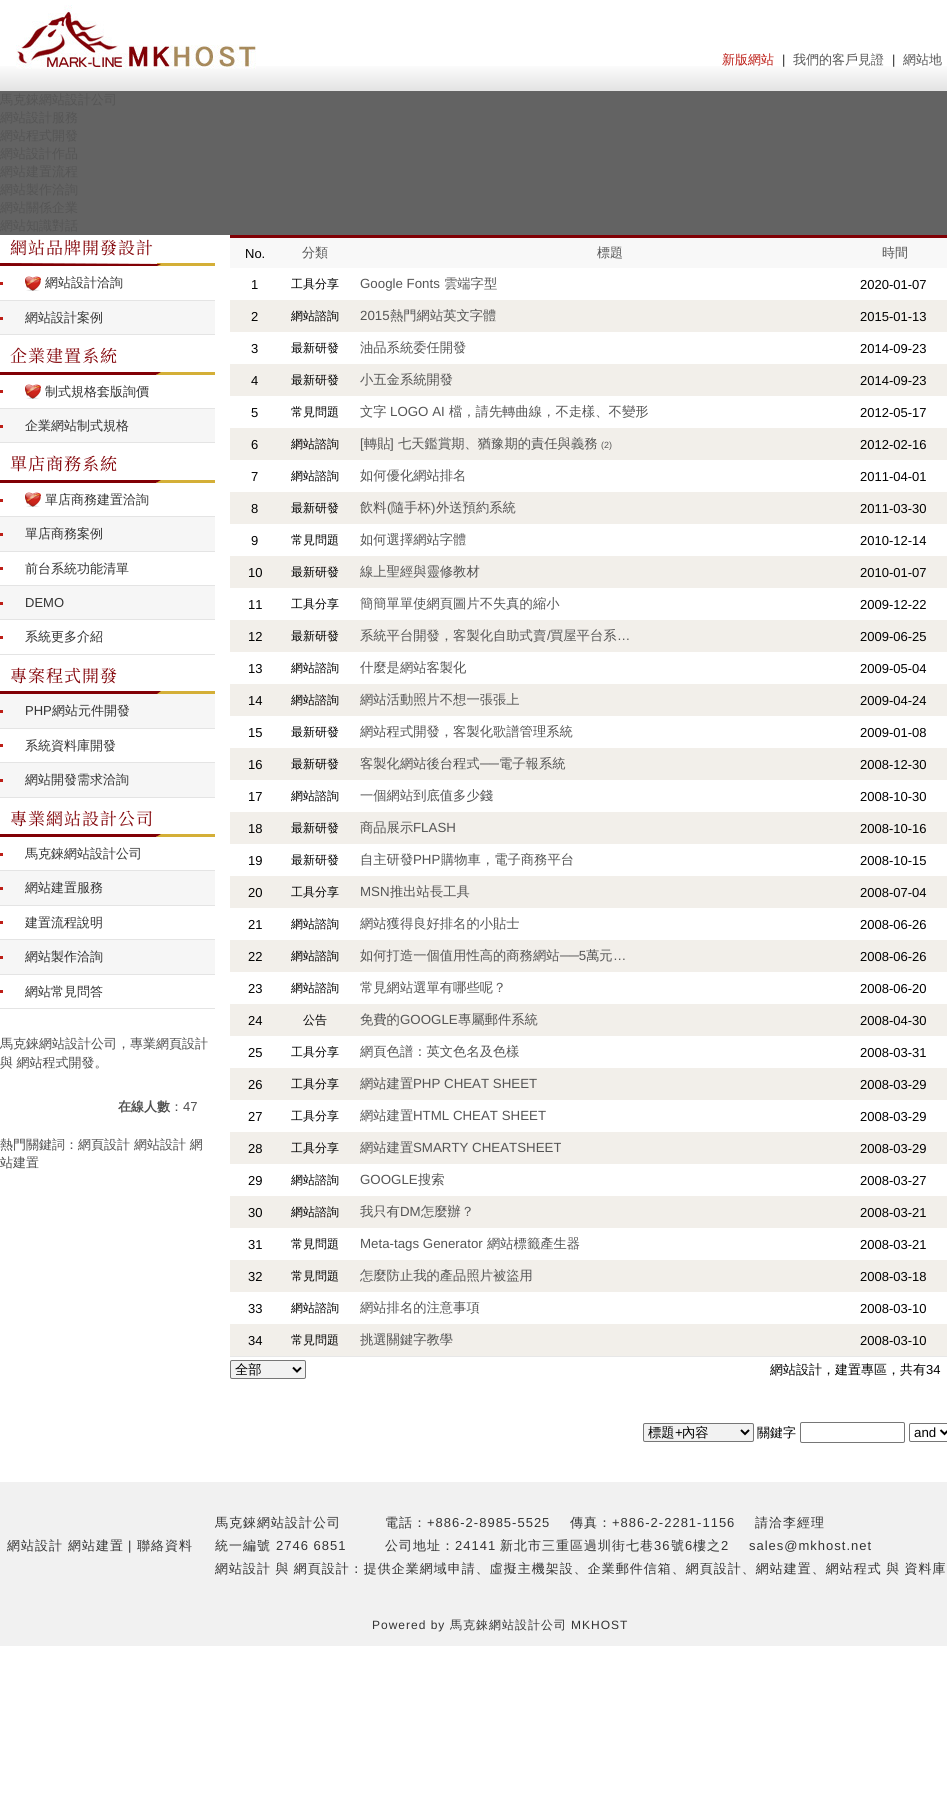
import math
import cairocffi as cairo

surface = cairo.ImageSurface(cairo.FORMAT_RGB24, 947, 1809)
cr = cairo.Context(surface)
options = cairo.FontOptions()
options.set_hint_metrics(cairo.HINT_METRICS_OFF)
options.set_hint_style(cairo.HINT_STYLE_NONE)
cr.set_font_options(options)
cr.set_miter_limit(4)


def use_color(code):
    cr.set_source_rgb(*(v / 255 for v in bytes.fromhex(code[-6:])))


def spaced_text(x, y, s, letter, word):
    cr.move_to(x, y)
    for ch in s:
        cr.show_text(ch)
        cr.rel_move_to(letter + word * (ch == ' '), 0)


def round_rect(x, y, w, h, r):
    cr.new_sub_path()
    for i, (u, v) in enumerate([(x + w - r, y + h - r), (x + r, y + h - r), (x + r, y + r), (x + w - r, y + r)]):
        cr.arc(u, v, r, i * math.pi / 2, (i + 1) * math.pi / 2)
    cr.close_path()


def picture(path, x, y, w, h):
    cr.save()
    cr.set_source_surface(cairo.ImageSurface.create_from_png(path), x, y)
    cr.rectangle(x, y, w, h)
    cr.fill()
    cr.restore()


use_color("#ffffff")
cr.paint()
gradient = cairo.LinearGradient(474, 0, 474, 90)
gradient.add_color_stop_rgba(0.7, 1, 1, 1, 1)
gradient.add_color_stop_rgba(1, 0.894, 0.894, 0.894, 1)
cr.set_source(gradient)
cr.rectangle(0, 66, 947, 24)
cr.fill()
use_color("#e4e4e4")
cr.rectangle(0, 90, 947, 1)
cr.fill()
picture("img1.png", 16, 5, 240, 64)
cr.select_font_face("WenQuanYi Zen Hei Medium")
cr.set_font_size(13)
use_color("#bd1e17")
cr.move_to(722, 64)
cr.show_text("新版網站")
cr.select_font_face("Liberation Sans")
use_color("#292929")
cr.move_to(782, 64)
cr.show_text("|")
cr.select_font_face("WenQuanYi Zen Hei Medium")
use_color("#555555")
cr.move_to(793, 64)
cr.show_text("我們的客戶見證")
cr.select_font_face("Liberation Sans")
use_color("#292929")
cr.move_to(892, 64)
cr.show_text("|")
cr.select_font_face("WenQuanYi Zen Hei Medium")
use_color("#555555")
cr.move_to(903, 64)
cr.show_text("網站地")
use_color("#636363")
cr.rectangle(0, 91, 947, 144)
cr.fill()
use_color("#555555")
cr.move_to(0, 104)
cr.show_text("馬克錸網站設計公司")
cr.move_to(0, 122)
cr.show_text("網站設計服務")
cr.move_to(0, 140)
cr.show_text("網站程式開發")
cr.move_to(0, 158)
cr.show_text("網站設計作品")
cr.move_to(0, 176)
cr.show_text("網站建置流程")
cr.move_to(0, 194)
cr.show_text("網站製作洽詢")
cr.move_to(0, 212)
cr.show_text("網站關係企業")
cr.move_to(0, 230)
cr.show_text("網站知識對話")
cr.select_font_face("Noto Serif TC ExtraLight")
cr.set_font_size(17)
use_color("#810005")
spaced_text(10, 254, "網站品牌開發設計", 1, 0)
use_color("#d4af37")
cr.rectangle(157, 263, 58, 3)
cr.fill()
use_color("#810005")
cr.new_path()
cr.move_to(0, 263)
cr.line_to(0, 266)
cr.line_to(157, 266)
cr.line_to(161, 264)
cr.close_path()
cr.fill()
use_color("#e4e4e4")
cr.rectangle(0, 300, 215, 1)
cr.fill()
use_color("#bd1e17")
cr.rectangle(0, 282, 3, 3)
cr.fill()
picture("img2.png", 25, 276, 16, 15)
cr.select_font_face("WenQuanYi Zen Hei Medium")
cr.set_font_size(13)
use_color("#333333")
cr.move_to(45, 287)
cr.show_text("網站設計洽詢")
use_color("#f6f6f6")
cr.rectangle(0, 301, 215, 33)
cr.fill()
use_color("#e4e4e4")
cr.rectangle(0, 334, 215, 1)
cr.fill()
use_color("#bd1e17")
cr.rectangle(0, 317, 3, 3)
cr.fill()
use_color("#333333")
cr.move_to(25, 322)
cr.show_text("網站設計案例")
cr.select_font_face("Noto Serif TC ExtraLight")
cr.set_font_size(17)
use_color("#810005")
spaced_text(10, 362, "企業建置系統", 1, 0)
use_color("#d4af37")
cr.rectangle(157, 372, 58, 3)
cr.fill()
use_color("#810005")
cr.new_path()
cr.move_to(0, 372)
cr.line_to(0, 375)
cr.line_to(156, 375)
cr.line_to(161, 372)
cr.close_path()
cr.fill()
use_color("#e4e4e4")
cr.rectangle(0, 408, 215, 1)
cr.fill()
use_color("#bd1e17")
cr.rectangle(0, 390, 3, 3)
cr.fill()
picture("img2.png", 25, 384, 16, 15)
cr.select_font_face("WenQuanYi Zen Hei Medium")
cr.set_font_size(13)
use_color("#333333")
cr.move_to(45, 396)
cr.show_text("制式規格套版詢價")
use_color("#f6f6f6")
cr.rectangle(0, 409, 215, 33)
cr.fill()
use_color("#e4e4e4")
cr.rectangle(0, 442, 215, 1)
cr.fill()
use_color("#bd1e17")
cr.rectangle(0, 425, 3, 3)
cr.fill()
use_color("#333333")
cr.move_to(25, 430)
cr.show_text("企業網站制式規格")
cr.select_font_face("Noto Serif TC ExtraLight")
cr.set_font_size(17)
use_color("#810005")
spaced_text(10, 470, "單店商務系統", 1, 0)
use_color("#d4af37")
cr.rectangle(157, 480, 58, 3)
cr.fill()
use_color("#810005")
cr.new_path()
cr.move_to(0, 480)
cr.line_to(0, 483)
cr.line_to(156, 483)
cr.line_to(161, 480)
cr.close_path()
cr.fill()
use_color("#e4e4e4")
cr.rectangle(0, 516, 215, 1)
cr.fill()
use_color("#bd1e17")
cr.rectangle(0, 499, 3, 3)
cr.fill()
picture("img2.png", 25, 492, 16, 15)
cr.select_font_face("WenQuanYi Zen Hei Medium")
cr.set_font_size(13)
use_color("#333333")
cr.move_to(45, 504)
cr.show_text("單店商務建置洽詢")
use_color("#f6f6f6")
cr.rectangle(0, 517, 215, 34)
cr.fill()
use_color("#e4e4e4")
cr.rectangle(0, 551, 215, 1)
cr.fill()
use_color("#bd1e17")
cr.rectangle(0, 533, 3, 3)
cr.fill()
use_color("#333333")
cr.move_to(25, 538)
cr.show_text("單店商務案例")
use_color("#e4e4e4")
cr.rectangle(0, 585, 215, 1)
cr.fill()
use_color("#bd1e17")
cr.rectangle(0, 567, 3, 3)
cr.fill()
use_color("#333333")
cr.move_to(25, 573)
cr.show_text("前台系統功能清單")
use_color("#f6f6f6")
cr.rectangle(0, 586, 215, 33)
cr.fill()
use_color("#e4e4e4")
cr.rectangle(0, 619, 215, 1)
cr.fill()
use_color("#bd1e17")
cr.rectangle(0, 602, 3, 3)
cr.fill()
cr.select_font_face("Liberation Sans")
use_color("#333333")
cr.move_to(25, 607)
cr.show_text("DEMO")
use_color("#e4e4e4")
cr.rectangle(0, 654, 215, 1)
cr.fill()
use_color("#bd1e17")
cr.rectangle(0, 636, 3, 3)
cr.fill()
cr.select_font_face("WenQuanYi Zen Hei Medium")
use_color("#333333")
cr.move_to(25, 641)
cr.show_text("系統更多介紹")
cr.select_font_face("Noto Serif TC ExtraLight")
cr.set_font_size(17)
use_color("#810005")
spaced_text(10, 682, "專案程式開發", 1, 0)
use_color("#d4af37")
cr.rectangle(157, 691, 58, 3)
cr.fill()
use_color("#810005")
cr.new_path()
cr.move_to(0, 691)
cr.line_to(0, 694)
cr.line_to(157, 694)
cr.line_to(161, 691)
cr.close_path()
cr.fill()
use_color("#f6f6f6")
cr.rectangle(0, 694, 215, 34)
cr.fill()
use_color("#e4e4e4")
cr.rectangle(0, 728, 215, 1)
cr.fill()
use_color("#bd1e17")
cr.rectangle(0, 710, 3, 3)
cr.fill()
cr.select_font_face("Liberation Sans")
cr.set_font_size(13)
use_color("#333333")
cr.move_to(25, 715)
cr.show_text("PHP")
cr.select_font_face("WenQuanYi Zen Hei Medium")
cr.move_to(52, 715)
cr.show_text("網站元件開發")
use_color("#e4e4e4")
cr.rectangle(0, 762, 215, 1)
cr.fill()
use_color("#bd1e17")
cr.rectangle(0, 744, 3, 3)
cr.fill()
use_color("#333333")
cr.move_to(25, 750)
cr.show_text("系統資料庫開發")
use_color("#f6f6f6")
cr.rectangle(0, 763, 215, 34)
cr.fill()
use_color("#e4e4e4")
cr.rectangle(0, 797, 215, 1)
cr.fill()
use_color("#bd1e17")
cr.rectangle(0, 779, 3, 3)
cr.fill()
use_color("#333333")
cr.move_to(25, 784)
cr.show_text("網站開發需求洽詢")
cr.select_font_face("Noto Serif TC ExtraLight")
cr.set_font_size(17)
use_color("#810005")
spaced_text(10, 825, "專業網站設計公司", 1, 0)
use_color("#d4af37")
cr.rectangle(157, 834, 58, 3)
cr.fill()
use_color("#810005")
cr.new_path()
cr.move_to(0, 834)
cr.line_to(0, 837)
cr.line_to(156, 837)
cr.line_to(161, 834)
cr.close_path()
cr.fill()
use_color("#e4e4e4")
cr.rectangle(0, 870, 215, 1)
cr.fill()
use_color("#bd1e17")
cr.rectangle(0, 853, 3, 3)
cr.fill()
cr.select_font_face("WenQuanYi Zen Hei Medium")
cr.set_font_size(13)
use_color("#333333")
cr.move_to(25, 858)
cr.show_text("馬克錸網站設計公司")
use_color("#f6f6f6")
cr.rectangle(0, 871, 215, 34)
cr.fill()
use_color("#e4e4e4")
cr.rectangle(0, 905, 215, 1)
cr.fill()
use_color("#bd1e17")
cr.rectangle(0, 887, 3, 3)
cr.fill()
use_color("#333333")
cr.move_to(25, 892)
cr.show_text("網站建置服務")
use_color("#e4e4e4")
cr.rectangle(0, 939, 215, 1)
cr.fill()
use_color("#bd1e17")
cr.rectangle(0, 921, 3, 3)
cr.fill()
use_color("#333333")
cr.move_to(25, 927)
cr.show_text("建置流程說明")
use_color("#f6f6f6")
cr.rectangle(0, 940, 215, 34)
cr.fill()
use_color("#e4e4e4")
cr.rectangle(0, 974, 215, 1)
cr.fill()
use_color("#bd1e17")
cr.rectangle(0, 956, 3, 3)
cr.fill()
use_color("#333333")
cr.move_to(25, 961)
cr.show_text("網站製作洽詢")
use_color("#e4e4e4")
cr.rectangle(0, 1008, 215, 1)
cr.fill()
use_color("#bd1e17")
cr.rectangle(0, 990, 3, 3)
cr.fill()
use_color("#333333")
cr.move_to(25, 996)
cr.show_text("網站常見問答")
use_color("#4d4d4d")
cr.move_to(0, 1048)
cr.show_text("馬克錸網站設計公司，專業網頁設計")
spaced_text(0, 1067, "與 網站程式開發。", 0, -0.5)
cr.select_font_face("WenQuanYi Zen Hei", cairo.FONT_SLANT_NORMAL, cairo.FONT_WEIGHT_BOLD)
cr.move_to(118, 1111)
cr.show_text("在線人數")
cr.select_font_face("WenQuanYi Zen Hei Medium")
cr.move_to(170, 1111)
cr.show_text("：")
cr.select_font_face("Liberation Sans")
cr.move_to(183, 1111)
cr.show_text("47")
cr.select_font_face("WenQuanYi Zen Hei Medium")
cr.move_to(0, 1149)
cr.show_text("熱門關鍵詞：網頁設計 網站設計 網")
cr.move_to(0, 1167)
cr.show_text("站建置")
use_color("#810005")
cr.rectangle(230, 235, 717, 3)
cr.fill()
use_color("#f8f8f8")
cr.rectangle(230, 238, 717, 30)
cr.fill()
cr.select_font_face("Liberation Sans")
use_color("#000000")
cr.move_to(245, 258)
cr.show_text("No.")
cr.select_font_face("WenQuanYi Zen Hei Medium")
use_color("#555555")
cr.move_to(302, 257)
cr.show_text("分類")
cr.move_to(597, 257)
cr.show_text("標題")
cr.move_to(882, 257)
cr.show_text("時間")
cr.select_font_face("Liberation Sans")
use_color("#000000")
cr.move_to(251, 289)
cr.show_text("1")
cr.select_font_face("WenQuanYi Zen Hei Medium")
cr.set_font_size(12)
cr.move_to(291, 288)
cr.show_text("工具分享")
cr.select_font_face("Liberation Sans")
cr.set_font_size(13.3)
use_color("#555555")
cr.move_to(360, 288)
cr.show_text("Google Fonts")
cr.select_font_face("WenQuanYi Zen Hei Medium")
cr.move_to(444, 288)
cr.show_text("雲端字型")
cr.select_font_face("Liberation Sans")
cr.set_font_size(13)
use_color("#000000")
cr.move_to(860, 289)
cr.show_text("2020-01-07")
use_color("#f2efea")
cr.rectangle(230, 300, 717, 32)
cr.fill()
use_color("#000000")
cr.move_to(251, 321)
cr.show_text("2")
cr.select_font_face("WenQuanYi Zen Hei Medium")
cr.set_font_size(12)
cr.move_to(291, 320)
cr.show_text("網站諮詢")
cr.select_font_face("Liberation Sans")
cr.set_font_size(13.3)
use_color("#555555")
cr.move_to(360, 320)
cr.show_text("2015")
cr.select_font_face("WenQuanYi Zen Hei Medium")
cr.move_to(390, 320)
cr.show_text("熱門網站英文字體")
cr.select_font_face("Liberation Sans")
cr.set_font_size(13)
use_color("#000000")
cr.move_to(860, 321)
cr.show_text("2015-01-13")
cr.move_to(251, 353)
cr.show_text("3")
cr.select_font_face("WenQuanYi Zen Hei Medium")
cr.set_font_size(12)
cr.move_to(291, 352)
cr.show_text("最新研發")
cr.set_font_size(13.3)
use_color("#555555")
cr.move_to(360, 352)
cr.show_text("油品系統委任開發")
cr.select_font_face("Liberation Sans")
cr.set_font_size(13)
use_color("#000000")
cr.move_to(860, 353)
cr.show_text("2014-09-23")
use_color("#f2efea")
cr.rectangle(230, 364, 717, 32)
cr.fill()
use_color("#000000")
cr.move_to(251, 385)
cr.show_text("4")
cr.select_font_face("WenQuanYi Zen Hei Medium")
cr.set_font_size(12)
cr.move_to(291, 384)
cr.show_text("最新研發")
cr.set_font_size(13.3)
use_color("#555555")
cr.move_to(360, 384)
cr.show_text("小五金系統開發")
cr.select_font_face("Liberation Sans")
cr.set_font_size(13)
use_color("#000000")
cr.move_to(860, 385)
cr.show_text("2014-09-23")
cr.move_to(251, 417)
cr.show_text("5")
cr.select_font_face("WenQuanYi Zen Hei Medium")
cr.set_font_size(12)
cr.move_to(291, 416)
cr.show_text("常見問題")
cr.set_font_size(13.3)
use_color("#555555")
cr.move_to(360, 416)
cr.show_text("文字")
cr.select_font_face("Liberation Sans")
cr.move_to(390, 416)
cr.show_text("LOGO AI")
cr.select_font_face("WenQuanYi Zen Hei Medium")
cr.move_to(449, 416)
cr.show_text("檔，請先轉曲線，不走樣、不變形")
cr.select_font_face("Liberation Sans")
cr.set_font_size(13)
use_color("#000000")
cr.move_to(860, 417)
cr.show_text("2012-05-17")
use_color("#f2efea")
cr.rectangle(230, 428, 717, 32)
cr.fill()
use_color("#000000")
cr.move_to(251, 449)
cr.show_text("6")
cr.select_font_face("WenQuanYi Zen Hei Medium")
cr.set_font_size(12)
cr.move_to(291, 448)
cr.show_text("網站諮詢")
cr.select_font_face("Liberation Sans")
cr.set_font_size(13.3)
use_color("#555555")
cr.move_to(360, 448)
cr.show_text("[")
cr.select_font_face("WenQuanYi Zen Hei Medium")
cr.move_to(364, 448)
cr.show_text("轉貼")
cr.select_font_face("Liberation Sans")
cr.move_to(390, 448)
cr.show_text("]")
cr.select_font_face("WenQuanYi Zen Hei Medium")
cr.move_to(398, 448)
cr.show_text("七天鑑賞期、猶豫期的責任與義務")
cr.select_font_face("Liberation Sans")
cr.set_font_size(9)
cr.move_to(601, 448)
cr.show_text("(2)")
cr.set_font_size(13)
use_color("#000000")
cr.move_to(860, 449)
cr.show_text("2012-02-16")
cr.move_to(251, 481)
cr.show_text("7")
cr.select_font_face("WenQuanYi Zen Hei Medium")
cr.set_font_size(12)
cr.move_to(291, 480)
cr.show_text("網站諮詢")
cr.set_font_size(13.3)
use_color("#555555")
cr.move_to(360, 480)
cr.show_text("如何優化網站排名")
cr.select_font_face("Liberation Sans")
cr.set_font_size(13)
use_color("#000000")
cr.move_to(860, 481)
cr.show_text("2011-04-01")
use_color("#f2efea")
cr.rectangle(230, 492, 717, 32)
cr.fill()
use_color("#000000")
cr.move_to(251, 513)
cr.show_text("8")
cr.select_font_face("WenQuanYi Zen Hei Medium")
cr.set_font_size(12)
cr.move_to(291, 512)
cr.show_text("最新研發")
cr.set_font_size(13.3)
use_color("#555555")
cr.move_to(360, 512)
cr.show_text("飲料")
cr.select_font_face("Liberation Sans")
cr.move_to(387, 512)
cr.show_text("(")
cr.select_font_face("WenQuanYi Zen Hei Medium")
cr.move_to(391, 512)
cr.show_text("隨手杯")
cr.select_font_face("Liberation Sans")
cr.move_to(431, 512)
cr.show_text(")")
cr.select_font_face("WenQuanYi Zen Hei Medium")
cr.move_to(436, 512)
cr.show_text("外送預約系統")
cr.select_font_face("Liberation Sans")
cr.set_font_size(13)
use_color("#000000")
cr.move_to(860, 513)
cr.show_text("2011-03-30")
cr.move_to(251, 545)
cr.show_text("9")
cr.select_font_face("WenQuanYi Zen Hei Medium")
cr.set_font_size(12)
cr.move_to(291, 544)
cr.show_text("常見問題")
cr.set_font_size(13.3)
use_color("#555555")
cr.move_to(360, 544)
cr.show_text("如何選擇網站字體")
cr.select_font_face("Liberation Sans")
cr.set_font_size(13)
use_color("#000000")
cr.move_to(860, 545)
cr.show_text("2010-12-14")
use_color("#f2efea")
cr.rectangle(230, 556, 717, 32)
cr.fill()
use_color("#000000")
cr.move_to(248, 577)
cr.show_text("10")
cr.select_font_face("WenQuanYi Zen Hei Medium")
cr.set_font_size(12)
cr.move_to(291, 576)
cr.show_text("最新研發")
cr.set_font_size(13.3)
use_color("#555555")
cr.move_to(360, 576)
cr.show_text("線上聖經與靈修教材")
cr.select_font_face("Liberation Sans")
cr.set_font_size(13)
use_color("#000000")
cr.move_to(860, 577)
cr.show_text("2010-01-07")
cr.move_to(248, 609)
cr.show_text("11")
cr.select_font_face("WenQuanYi Zen Hei Medium")
cr.set_font_size(12)
cr.move_to(291, 608)
cr.show_text("工具分享")
cr.set_font_size(13.3)
use_color("#555555")
cr.move_to(360, 608)
cr.show_text("簡簡單單使網頁圖片不失真的縮小")
cr.select_font_face("Liberation Sans")
cr.set_font_size(13)
use_color("#000000")
cr.move_to(860, 609)
cr.show_text("2009-12-22")
use_color("#f2efea")
cr.rectangle(230, 620, 717, 32)
cr.fill()
use_color("#000000")
cr.move_to(248, 641)
cr.show_text("12")
cr.select_font_face("WenQuanYi Zen Hei Medium")
cr.set_font_size(12)
cr.move_to(291, 640)
cr.show_text("最新研發")
cr.set_font_size(13.3)
use_color("#555555")
cr.move_to(360, 640)
cr.show_text("系統平台開發，客製化自助式賣")
cr.select_font_face("Liberation Sans")
cr.move_to(547, 640)
cr.show_text("/")
cr.select_font_face("WenQuanYi Zen Hei Medium")
cr.move_to(550, 640)
cr.show_text("買屋平台系")
cr.select_font_face("Liberation Sans")
cr.move_to(617, 640)
cr.show_text("…")
cr.set_font_size(13)
use_color("#000000")
cr.move_to(860, 641)
cr.show_text("2009-06-25")
cr.move_to(248, 673)
cr.show_text("13")
cr.select_font_face("WenQuanYi Zen Hei Medium")
cr.set_font_size(12)
cr.move_to(291, 672)
cr.show_text("網站諮詢")
cr.set_font_size(13.3)
use_color("#555555")
cr.move_to(360, 672)
cr.show_text("什麼是網站客製化")
cr.select_font_face("Liberation Sans")
cr.set_font_size(13)
use_color("#000000")
cr.move_to(860, 673)
cr.show_text("2009-05-04")
use_color("#f2efea")
cr.rectangle(230, 684, 717, 32)
cr.fill()
use_color("#000000")
cr.move_to(248, 705)
cr.show_text("14")
cr.select_font_face("WenQuanYi Zen Hei Medium")
cr.set_font_size(12)
cr.move_to(291, 704)
cr.show_text("網站諮詢")
cr.set_font_size(13.3)
use_color("#555555")
cr.move_to(360, 704)
cr.show_text("網站活動照片不想一張張上")
cr.select_font_face("Liberation Sans")
cr.set_font_size(13)
use_color("#000000")
cr.move_to(860, 705)
cr.show_text("2009-04-24")
cr.move_to(248, 737)
cr.show_text("15")
cr.select_font_face("WenQuanYi Zen Hei Medium")
cr.set_font_size(12)
cr.move_to(291, 736)
cr.show_text("最新研發")
cr.set_font_size(13.3)
use_color("#555555")
cr.move_to(360, 736)
cr.show_text("網站程式開發，客製化歌譜管理系統")
cr.select_font_face("Liberation Sans")
cr.set_font_size(13)
use_color("#000000")
cr.move_to(860, 737)
cr.show_text("2009-01-08")
use_color("#f2efea")
cr.rectangle(230, 748, 717, 32)
cr.fill()
use_color("#000000")
cr.move_to(248, 769)
cr.show_text("16")
cr.select_font_face("WenQuanYi Zen Hei Medium")
cr.set_font_size(12)
cr.move_to(291, 768)
cr.show_text("最新研發")
cr.set_font_size(13.3)
use_color("#555555")
cr.move_to(360, 768)
cr.show_text("客製化網站後台程式")
cr.select_font_face("Liberation Sans")
cr.move_to(480, 768)
cr.show_text("──")
cr.select_font_face("WenQuanYi Zen Hei Medium")
cr.move_to(499, 768)
cr.show_text("電子報系統")
cr.select_font_face("Liberation Sans")
cr.set_font_size(13)
use_color("#000000")
cr.move_to(860, 769)
cr.show_text("2008-12-30")
cr.move_to(248, 801)
cr.show_text("17")
cr.select_font_face("WenQuanYi Zen Hei Medium")
cr.set_font_size(12)
cr.move_to(291, 800)
cr.show_text("網站諮詢")
cr.set_font_size(13.3)
use_color("#555555")
cr.move_to(360, 800)
cr.show_text("一個網站到底值多少錢")
cr.select_font_face("Liberation Sans")
cr.set_font_size(13)
use_color("#000000")
cr.move_to(860, 801)
cr.show_text("2008-10-30")
use_color("#f2efea")
cr.rectangle(230, 812, 717, 32)
cr.fill()
use_color("#000000")
cr.move_to(248, 833)
cr.show_text("18")
cr.select_font_face("WenQuanYi Zen Hei Medium")
cr.set_font_size(12)
cr.move_to(291, 832)
cr.show_text("最新研發")
cr.set_font_size(13.3)
use_color("#555555")
cr.move_to(360, 832)
cr.show_text("商品展示")
cr.select_font_face("Liberation Sans")
cr.move_to(413, 832)
cr.show_text("FLASH")
cr.set_font_size(13)
use_color("#000000")
cr.move_to(860, 833)
cr.show_text("2008-10-16")
cr.move_to(248, 865)
cr.show_text("19")
cr.select_font_face("WenQuanYi Zen Hei Medium")
cr.set_font_size(12)
cr.move_to(291, 864)
cr.show_text("最新研發")
cr.set_font_size(13.3)
use_color("#555555")
cr.move_to(360, 864)
cr.show_text("自主研發")
cr.select_font_face("Liberation Sans")
cr.move_to(413, 864)
cr.show_text("PHP")
cr.select_font_face("WenQuanYi Zen Hei Medium")
cr.move_to(441, 864)
cr.show_text("購物車，電子商務平台")
cr.select_font_face("Liberation Sans")
cr.set_font_size(13)
use_color("#000000")
cr.move_to(860, 865)
cr.show_text("2008-10-15")
use_color("#f2efea")
cr.rectangle(230, 876, 717, 32)
cr.fill()
use_color("#000000")
cr.move_to(248, 897)
cr.show_text("20")
cr.select_font_face("WenQuanYi Zen Hei Medium")
cr.set_font_size(12)
cr.move_to(291, 896)
cr.show_text("工具分享")
cr.select_font_face("Liberation Sans")
cr.set_font_size(13.3)
use_color("#555555")
cr.move_to(360, 896)
cr.show_text("MSN")
cr.select_font_face("WenQuanYi Zen Hei Medium")
cr.move_to(390, 896)
cr.show_text("推出站長工具")
cr.select_font_face("Liberation Sans")
cr.set_font_size(13)
use_color("#000000")
cr.move_to(860, 897)
cr.show_text("2008-07-04")
cr.move_to(248, 929)
cr.show_text("21")
cr.select_font_face("WenQuanYi Zen Hei Medium")
cr.set_font_size(12)
cr.move_to(291, 928)
cr.show_text("網站諮詢")
cr.set_font_size(13.3)
use_color("#555555")
cr.move_to(360, 928)
cr.show_text("網站獲得良好排名的小貼士")
cr.select_font_face("Liberation Sans")
cr.set_font_size(13)
use_color("#000000")
cr.move_to(860, 929)
cr.show_text("2008-06-26")
use_color("#f2efea")
cr.rectangle(230, 940, 717, 32)
cr.fill()
use_color("#000000")
cr.move_to(248, 961)
cr.show_text("22")
cr.select_font_face("WenQuanYi Zen Hei Medium")
cr.set_font_size(12)
cr.move_to(291, 960)
cr.show_text("網站諮詢")
cr.set_font_size(13.3)
use_color("#555555")
cr.move_to(360, 960)
cr.show_text("如何打造一個值用性高的商務網站")
cr.select_font_face("Liberation Sans")
cr.move_to(560, 960)
cr.show_text("──5")
cr.select_font_face("WenQuanYi Zen Hei Medium")
cr.move_to(586, 960)
cr.show_text("萬元")
cr.select_font_face("Liberation Sans")
cr.move_to(613, 960)
cr.show_text("…")
cr.set_font_size(13)
use_color("#000000")
cr.move_to(860, 961)
cr.show_text("2008-06-26")
cr.move_to(248, 993)
cr.show_text("23")
cr.select_font_face("WenQuanYi Zen Hei Medium")
cr.set_font_size(12)
cr.move_to(291, 992)
cr.show_text("網站諮詢")
cr.set_font_size(13.3)
use_color("#555555")
cr.move_to(360, 992)
cr.show_text("常見網站選單有哪些呢？")
cr.select_font_face("Liberation Sans")
cr.set_font_size(13)
use_color("#000000")
cr.move_to(860, 993)
cr.show_text("2008-06-20")
use_color("#f2efea")
cr.rectangle(230, 1004, 717, 32)
cr.fill()
use_color("#000000")
cr.move_to(248, 1025)
cr.show_text("24")
cr.select_font_face("WenQuanYi Zen Hei Medium")
cr.set_font_size(12)
cr.move_to(303, 1024)
cr.show_text("公告")
cr.set_font_size(13.3)
use_color("#555555")
cr.move_to(360, 1024)
cr.show_text("免費的")
cr.select_font_face("Liberation Sans")
cr.move_to(400, 1024)
cr.show_text("GOOGLE")
cr.select_font_face("WenQuanYi Zen Hei Medium")
cr.move_to(458, 1024)
cr.show_text("專屬郵件系統")
cr.select_font_face("Liberation Sans")
cr.set_font_size(13)
use_color("#000000")
cr.move_to(860, 1025)
cr.show_text("2008-04-30")
cr.move_to(248, 1057)
cr.show_text("25")
cr.select_font_face("WenQuanYi Zen Hei Medium")
cr.set_font_size(12)
cr.move_to(291, 1056)
cr.show_text("工具分享")
cr.set_font_size(13.3)
use_color("#555555")
cr.move_to(360, 1056)
cr.show_text("網頁色譜：英文色名及色樣")
cr.select_font_face("Liberation Sans")
cr.set_font_size(13)
use_color("#000000")
cr.move_to(860, 1057)
cr.show_text("2008-03-31")
use_color("#f2efea")
cr.rectangle(230, 1068, 717, 32)
cr.fill()
use_color("#000000")
cr.move_to(248, 1089)
cr.show_text("26")
cr.select_font_face("WenQuanYi Zen Hei Medium")
cr.set_font_size(12)
cr.move_to(291, 1088)
cr.show_text("工具分享")
cr.set_font_size(13.3)
use_color("#555555")
cr.move_to(360, 1088)
cr.show_text("網站建置")
cr.select_font_face("Liberation Sans")
cr.move_to(413, 1088)
cr.show_text("PHP CHEAT SHEET")
cr.set_font_size(13)
use_color("#000000")
cr.move_to(860, 1089)
cr.show_text("2008-03-29")
cr.move_to(248, 1121)
cr.show_text("27")
cr.select_font_face("WenQuanYi Zen Hei Medium")
cr.set_font_size(12)
cr.move_to(291, 1120)
cr.show_text("工具分享")
cr.set_font_size(13.3)
use_color("#555555")
cr.move_to(360, 1120)
cr.show_text("網站建置")
cr.select_font_face("Liberation Sans")
cr.move_to(413, 1120)
cr.show_text("HTML CHEAT SHEET")
cr.set_font_size(13)
use_color("#000000")
cr.move_to(860, 1121)
cr.show_text("2008-03-29")
use_color("#f2efea")
cr.rectangle(230, 1132, 717, 32)
cr.fill()
use_color("#000000")
cr.move_to(248, 1153)
cr.show_text("28")
cr.select_font_face("WenQuanYi Zen Hei Medium")
cr.set_font_size(12)
cr.move_to(291, 1152)
cr.show_text("工具分享")
cr.set_font_size(13.3)
use_color("#555555")
cr.move_to(360, 1152)
cr.show_text("網站建置")
cr.select_font_face("Liberation Sans")
cr.move_to(413, 1152)
cr.show_text("SMARTY CHEATSHEET")
cr.set_font_size(13)
use_color("#000000")
cr.move_to(860, 1153)
cr.show_text("2008-03-29")
cr.move_to(248, 1185)
cr.show_text("29")
cr.select_font_face("WenQuanYi Zen Hei Medium")
cr.set_font_size(12)
cr.move_to(291, 1184)
cr.show_text("網站諮詢")
cr.select_font_face("Liberation Sans")
cr.set_font_size(13.3)
use_color("#555555")
cr.move_to(360, 1184)
cr.show_text("GOOGLE")
cr.select_font_face("WenQuanYi Zen Hei Medium")
cr.move_to(418, 1184)
cr.show_text("搜索")
cr.select_font_face("Liberation Sans")
cr.set_font_size(13)
use_color("#000000")
cr.move_to(860, 1185)
cr.show_text("2008-03-27")
use_color("#f2efea")
cr.rectangle(230, 1196, 717, 32)
cr.fill()
use_color("#000000")
cr.move_to(248, 1217)
cr.show_text("30")
cr.select_font_face("WenQuanYi Zen Hei Medium")
cr.set_font_size(12)
cr.move_to(291, 1216)
cr.show_text("網站諮詢")
cr.set_font_size(13.3)
use_color("#555555")
cr.move_to(360, 1216)
cr.show_text("我只有")
cr.select_font_face("Liberation Sans")
cr.move_to(400, 1216)
cr.show_text("DM")
cr.select_font_face("WenQuanYi Zen Hei Medium")
cr.move_to(421, 1216)
cr.show_text("怎麼辦？")
cr.select_font_face("Liberation Sans")
cr.set_font_size(13)
use_color("#000000")
cr.move_to(860, 1217)
cr.show_text("2008-03-21")
cr.move_to(248, 1249)
cr.show_text("31")
cr.select_font_face("WenQuanYi Zen Hei Medium")
cr.set_font_size(12)
cr.move_to(291, 1248)
cr.show_text("常見問題")
cr.select_font_face("Liberation Sans")
cr.set_font_size(13.3)
use_color("#555555")
cr.move_to(360, 1248)
cr.show_text("Meta-tags Generator")
cr.select_font_face("WenQuanYi Zen Hei Medium")
cr.move_to(487, 1248)
cr.show_text("網站標籤產生器")
cr.select_font_face("Liberation Sans")
cr.set_font_size(13)
use_color("#000000")
cr.move_to(860, 1249)
cr.show_text("2008-03-21")
use_color("#f2efea")
cr.rectangle(230, 1260, 717, 32)
cr.fill()
use_color("#000000")
cr.move_to(248, 1281)
cr.show_text("32")
cr.select_font_face("WenQuanYi Zen Hei Medium")
cr.set_font_size(12)
cr.move_to(291, 1280)
cr.show_text("常見問題")
cr.set_font_size(13.3)
use_color("#555555")
cr.move_to(360, 1280)
cr.show_text("怎麼防止我的產品照片被盜用")
cr.select_font_face("Liberation Sans")
cr.set_font_size(13)
use_color("#000000")
cr.move_to(860, 1281)
cr.show_text("2008-03-18")
cr.move_to(248, 1313)
cr.show_text("33")
cr.select_font_face("WenQuanYi Zen Hei Medium")
cr.set_font_size(12)
cr.move_to(291, 1312)
cr.show_text("網站諮詢")
cr.set_font_size(13.3)
use_color("#555555")
cr.move_to(360, 1312)
cr.show_text("網站排名的注意事項")
cr.select_font_face("Liberation Sans")
cr.set_font_size(13)
use_color("#000000")
cr.move_to(860, 1313)
cr.show_text("2008-03-10")
use_color("#f2efea")
cr.rectangle(230, 1324, 717, 32)
cr.fill()
use_color("#000000")
cr.move_to(248, 1345)
cr.show_text("34")
cr.select_font_face("WenQuanYi Zen Hei Medium")
cr.set_font_size(12)
cr.move_to(291, 1344)
cr.show_text("常見問題")
cr.set_font_size(13.3)
use_color("#555555")
cr.move_to(360, 1344)
cr.show_text("挑選關鍵字教學")
cr.select_font_face("Liberation Sans")
cr.set_font_size(13)
use_color("#000000")
cr.move_to(860, 1345)
cr.show_text("2008-03-10")
use_color("#e7e7e7")
cr.rectangle(230, 1356, 717, 1)
cr.fill()
use_color("#f2f2f2")
round_rect(230.5, 1360.5, 75, 18, 1.5)
cr.fill_preserve()
use_color("#767676")
cr.set_line_width(1)
cr.stroke()
cr.new_path()
cr.move_to(293, 1367.5)
cr.line_to(297, 1371.5)
cr.line_to(301, 1367.5)
use_color("#000000")
cr.set_line_width(2)
cr.stroke()
cr.select_font_face("WenQuanYi Zen Hei Medium")
cr.set_font_size(13.3)
cr.move_to(235, 1374)
cr.show_text("全部")
cr.set_font_size(13)
cr.move_to(770, 1374)
cr.show_text("網站設計，建置專區，共有")
cr.select_font_face("Liberation Sans")
cr.move_to(926, 1374)
cr.show_text("34")
use_color("#f2f2f2")
round_rect(643.5, 1423.5, 110, 18, 1.5)
cr.fill_preserve()
use_color("#767676")
cr.set_line_width(1)
cr.stroke()
cr.new_path()
cr.move_to(741, 1430)
cr.line_to(745, 1434)
cr.line_to(749, 1430)
use_color("#000000")
cr.set_line_width(2)
cr.stroke()
cr.select_font_face("WenQuanYi Zen Hei Medium")
cr.set_font_size(13.3)
cr.move_to(648, 1437)
cr.show_text("標題")
cr.select_font_face("Liberation Sans")
cr.move_to(675, 1437)
cr.show_text("+")
cr.select_font_face("WenQuanYi Zen Hei Medium")
cr.move_to(682, 1437)
cr.show_text("內容")
cr.set_font_size(13)
cr.move_to(757, 1437)
cr.show_text("關鍵字")
round_rect(800.5, 1422.5, 104, 20, 1.5)
use_color("#767676")
cr.set_line_width(1)
cr.stroke()
round_rect(909.5, 1423.5, 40, 18, 1.5)
cr.stroke()
cr.new_path()
cr.move_to(940.5, 1430)
cr.line_to(944.5, 1434)
cr.line_to(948.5, 1430)
use_color("#000000")
cr.set_line_width(2)
cr.stroke()
cr.select_font_face("Liberation Sans")
cr.set_font_size(13.3)
cr.move_to(914, 1437)
cr.show_text("and")
use_color("#f1f1f1")
cr.rectangle(0, 1482, 947, 164)
cr.fill()
cr.select_font_face("WenQuanYi Zen Hei Medium")
cr.set_font_size(13)
use_color("#333333")
spaced_text(7, 1550, "網站設計 網站建置", 1, 0)
cr.select_font_face("Liberation Sans")
spaced_text(128, 1550, "|", 1, 0)
cr.select_font_face("WenQuanYi Zen Hei Medium")
spaced_text(137, 1550, "聯絡資料", 1, 0)
spaced_text(215, 1527, "馬克錸網站設計公司", 1, 0)
spaced_text(385, 1527, "電話：", 1, 0)
cr.select_font_face("Liberation Sans")
spaced_text(427, 1527, "+886-2-8985-5525", 1, 0)
cr.select_font_face("WenQuanYi Zen Hei Medium")
spaced_text(570, 1527, "傳真：", 1, 0)
cr.select_font_face("Liberation Sans")
spaced_text(612, 1527, "+886-2-2281-1156", 1, 0)
cr.select_font_face("WenQuanYi Zen Hei Medium")
spaced_text(755, 1527, "請洽李經理", 1, 0)
spaced_text(215, 1550, "統一編號", 1, 0)
cr.select_font_face("Liberation Sans")
spaced_text(276, 1550, "2746 6851", 1, 0)
cr.select_font_face("WenQuanYi Zen Hei Medium")
spaced_text(385, 1550, "公司地址：", 1, 0)
cr.select_font_face("Liberation Sans")
spaced_text(455, 1550, "24141", 1, 0)
cr.select_font_face("WenQuanYi Zen Hei Medium")
spaced_text(500, 1550, "新北市三重區過圳街七巷", 1, 0)
cr.select_font_face("Liberation Sans")
spaced_text(654, 1550, "36", 1, 0)
cr.select_font_face("WenQuanYi Zen Hei Medium")
spaced_text(671, 1550, "號", 1, 0)
cr.select_font_face("Liberation Sans")
spaced_text(685, 1550, "6", 1, 0)
cr.select_font_face("WenQuanYi Zen Hei Medium")
spaced_text(693, 1550, "樓之", 1, 0)
cr.select_font_face("Liberation Sans")
spaced_text(721, 1550, "2", 1, 0)
spaced_text(749, 1550, "sales@mkhost.net", 1, 0)
cr.select_font_face("WenQuanYi Zen Hei Medium")
spaced_text(215, 1573, "網站設計 與 網頁設計：提供企業網域申請、虛擬主機架設、企業郵件信箱、網頁設計、網站建置、網站程式 與 資料庫", 1, -0.5)
cr.select_font_face("Liberation Sans")
cr.set_font_size(12)
spaced_text(372, 1629, "Powered by", 1, 0)
cr.select_font_face("WenQuanYi Zen Hei Medium")
spaced_text(450, 1629, "馬克錸網站設計公司", 1, 0)
cr.select_font_face("Liberation Sans")
spaced_text(571, 1629, "MKHOST", 1, 0)
surface.write_to_png("result.png")
